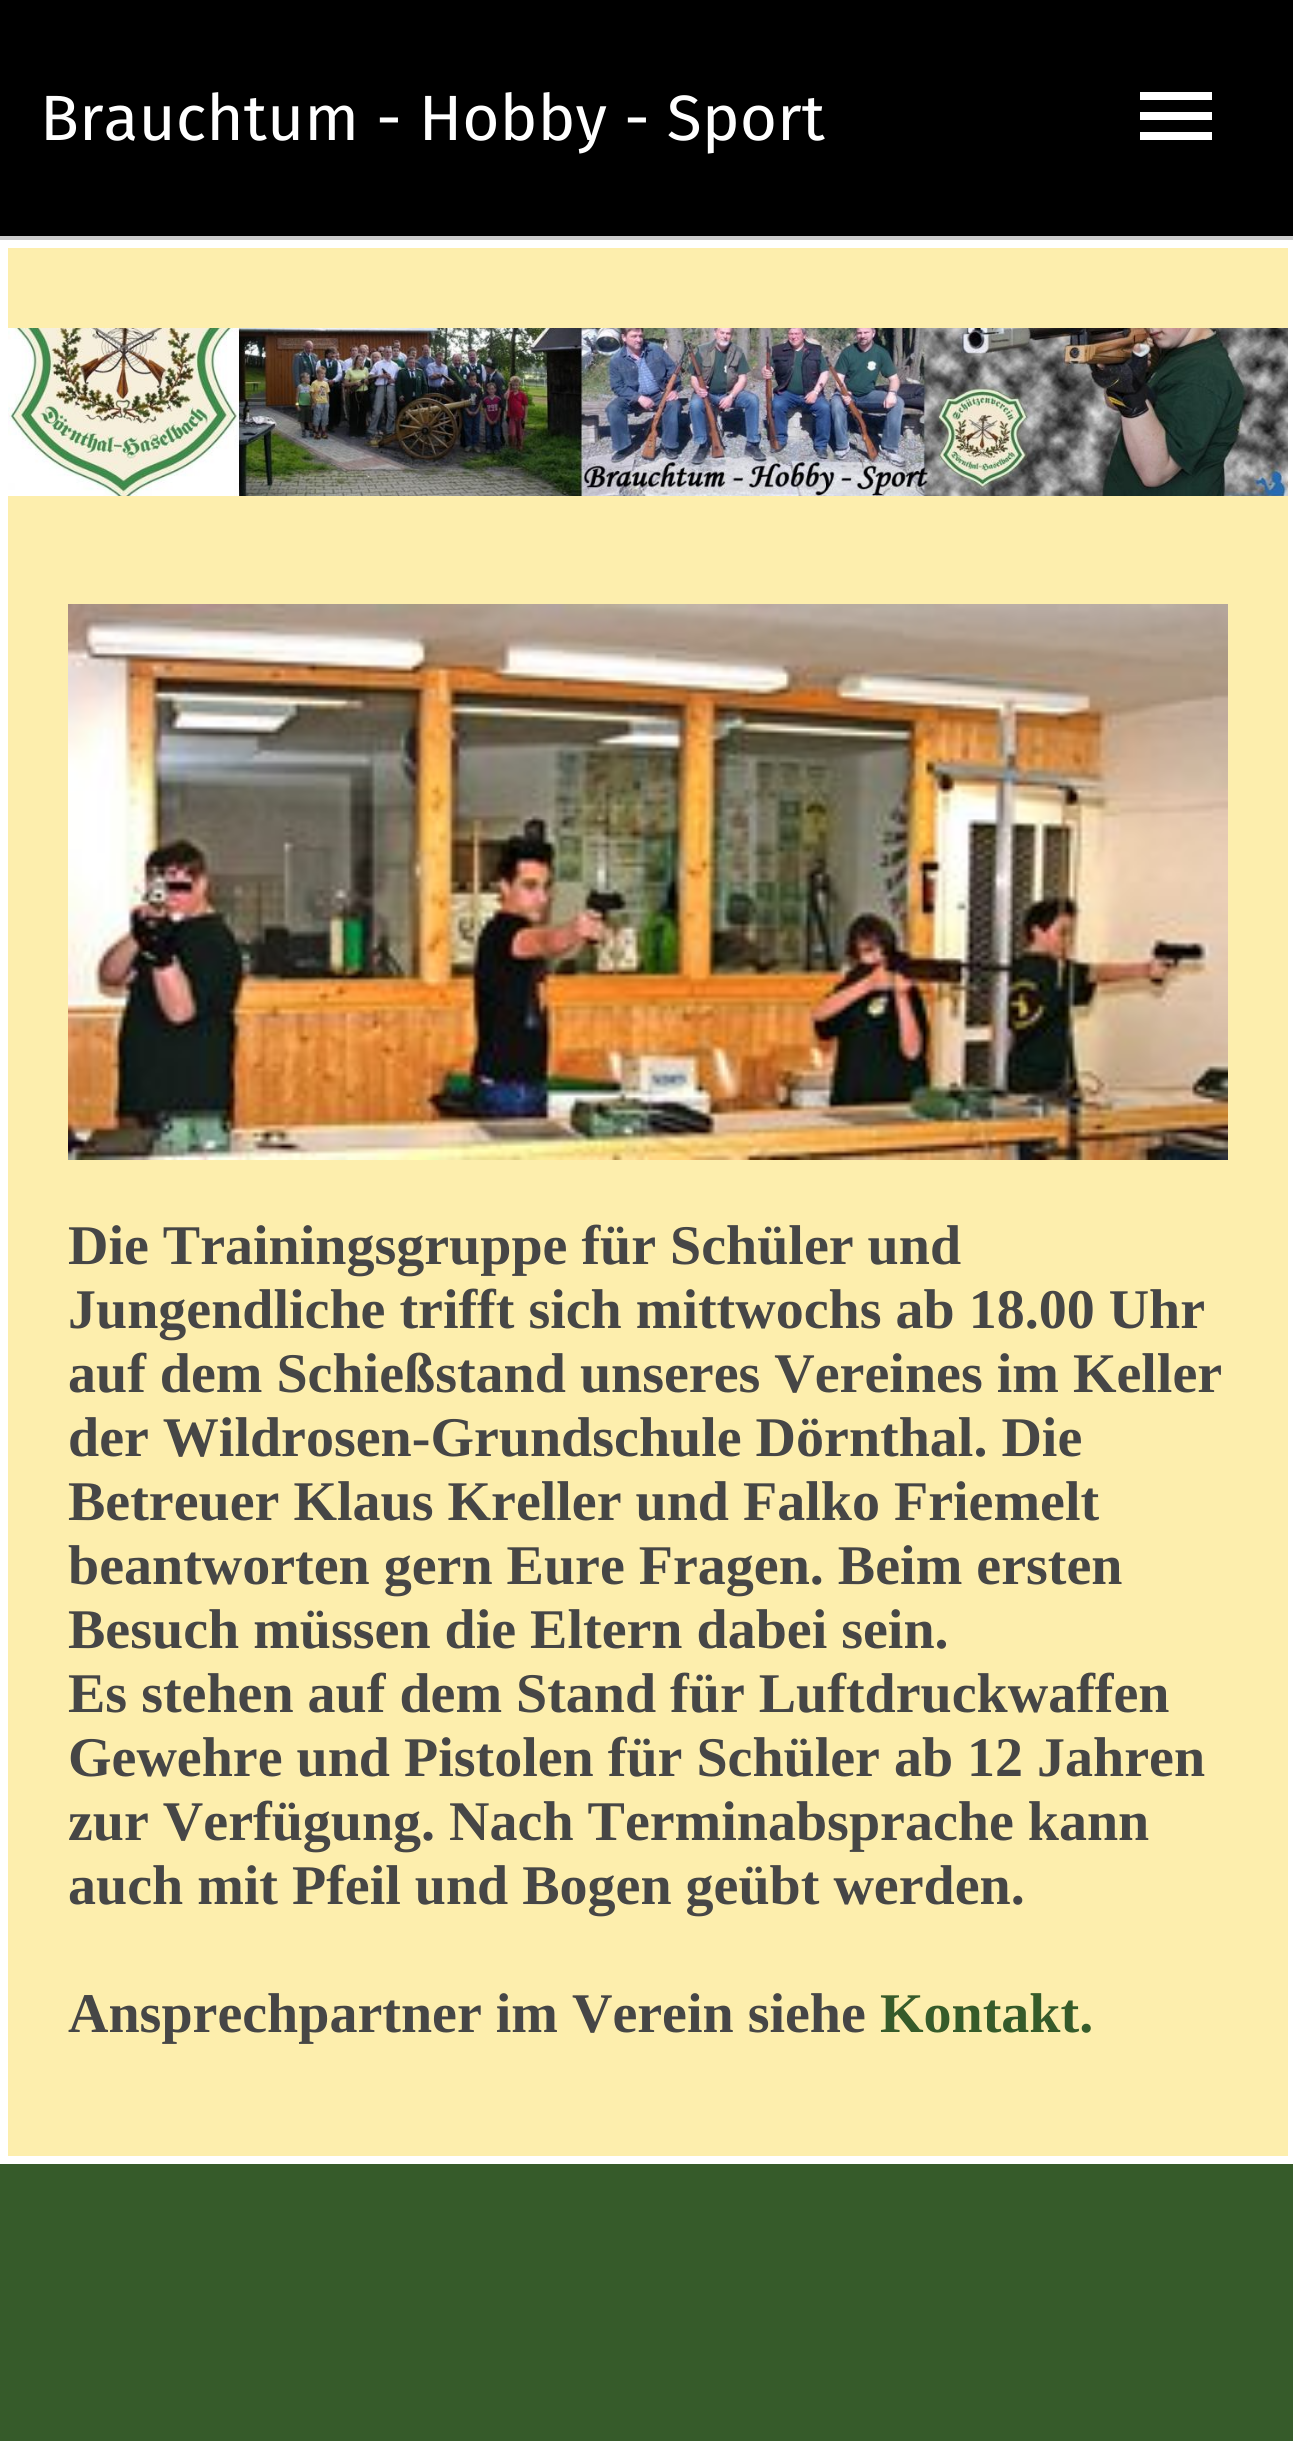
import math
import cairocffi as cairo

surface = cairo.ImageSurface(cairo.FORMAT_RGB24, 1293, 2441)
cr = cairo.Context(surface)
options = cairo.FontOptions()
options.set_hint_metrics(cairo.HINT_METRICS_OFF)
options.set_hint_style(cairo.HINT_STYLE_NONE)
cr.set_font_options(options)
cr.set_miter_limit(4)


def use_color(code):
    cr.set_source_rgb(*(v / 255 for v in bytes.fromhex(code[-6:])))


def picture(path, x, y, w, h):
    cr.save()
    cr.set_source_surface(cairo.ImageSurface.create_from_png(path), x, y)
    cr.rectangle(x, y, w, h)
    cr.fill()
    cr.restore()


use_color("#365b2a")
cr.paint()
use_color("#000000")
cr.rectangle(0, 0, 1293, 236)
cr.fill()
use_color("#cccccc")
cr.rectangle(0, 236, 1293, 4)
cr.fill()
cr.select_font_face("Fira Sans")
cr.set_font_size(64)
use_color("#ffffff")
cr.move_to(40, 140)
cr.show_text("Brauchtum - Hobby - Sport")
cr.new_path()
cr.move_to(1140, 140)
cr.line_to(1212, 140)
cr.line_to(1212, 132)
cr.line_to(1140, 132)
cr.close_path()
cr.move_to(1140, 120)
cr.line_to(1212, 120)
cr.line_to(1212, 112)
cr.line_to(1140, 112)
cr.close_path()
cr.move_to(1140, 92)
cr.line_to(1140, 100)
cr.line_to(1212, 100)
cr.line_to(1212, 92)
cr.close_path()
cr.fill()
cr.rectangle(4, 244, 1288, 1916)
cr.set_line_width(8)
cr.stroke()
picture("img1.png", 8, 328, 1280, 168)
use_color("#fdeead")
cr.rectangle(8, 496, 1280, 1660)
cr.fill()
cr.rectangle(8, 248, 1280, 80)
cr.fill()
picture("img2.png", 68, 604, 1160, 556)
cr.select_font_face("Liberation Serif", cairo.FONT_SLANT_NORMAL, cairo.FONT_WEIGHT_BOLD)
cr.set_font_size(56)
use_color("#464646")
cr.move_to(68, 1264)
cr.show_text("Die Trainingsgruppe für Schüler und")
cr.move_to(68, 1328)
cr.show_text("Jungendliche trifft sich mittwochs ab 18.00 Uhr")
cr.move_to(68, 1392)
cr.show_text("auf dem Schießstand unseres Vereines im Keller")
cr.move_to(68, 1456)
cr.show_text("der Wildrosen-Grundschule Dörnthal. Die")
cr.move_to(68, 1520)
cr.show_text("Betreuer Klaus Kreller und Falko Friemelt")
cr.move_to(68, 1584)
cr.show_text("beantworten gern Eure Fragen. Beim ersten")
cr.move_to(68, 1648)
cr.show_text("Besuch müssen die Eltern dabei sein.")
cr.move_to(68, 1712)
cr.show_text("Es stehen auf dem Stand für Luftdruckwaffen")
cr.move_to(68, 1776)
cr.show_text("Gewehre und Pistolen für Schüler ab 12 Jahren")
cr.move_to(68, 1840)
cr.show_text("zur Verfügung. Nach Terminabsprache kann")
cr.move_to(68, 1904)
cr.show_text("auch mit Pfeil und Bogen geübt werden.")
cr.move_to(68, 2032)
cr.show_text("Ansprechpartner im Verein siehe")
use_color("#365b2a")
cr.move_to(880, 2032)
cr.show_text("Kontakt.")
surface.write_to_png("result.png")
